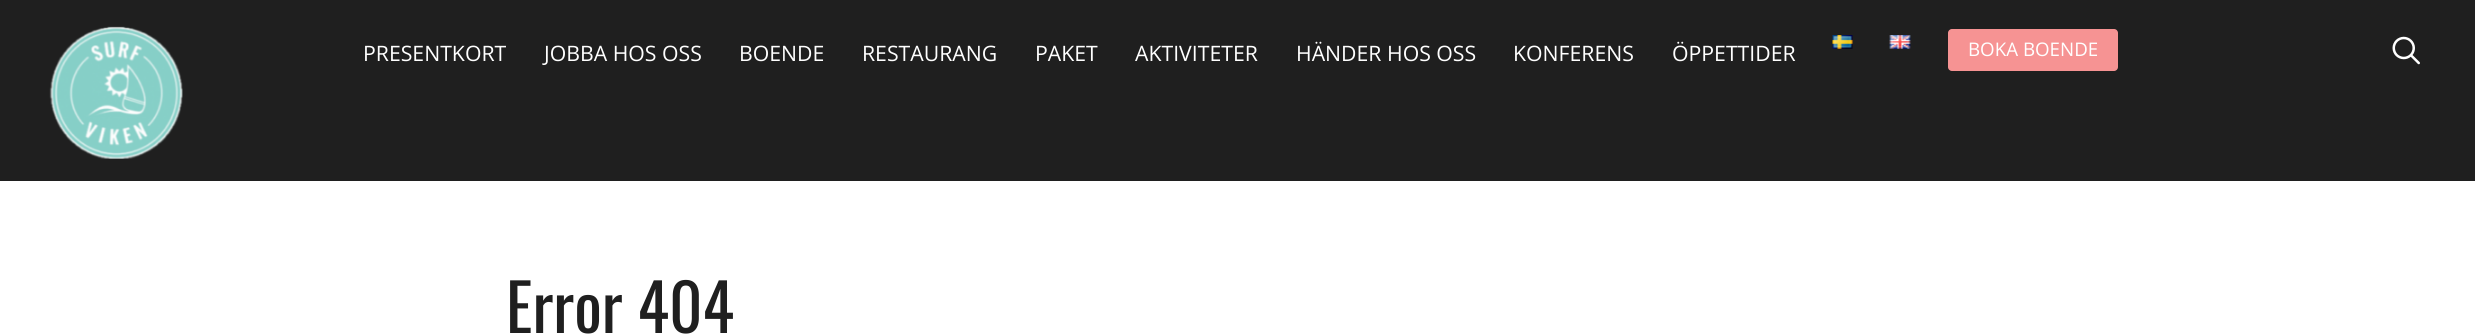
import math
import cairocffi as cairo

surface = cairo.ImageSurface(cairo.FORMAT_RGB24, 2475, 336)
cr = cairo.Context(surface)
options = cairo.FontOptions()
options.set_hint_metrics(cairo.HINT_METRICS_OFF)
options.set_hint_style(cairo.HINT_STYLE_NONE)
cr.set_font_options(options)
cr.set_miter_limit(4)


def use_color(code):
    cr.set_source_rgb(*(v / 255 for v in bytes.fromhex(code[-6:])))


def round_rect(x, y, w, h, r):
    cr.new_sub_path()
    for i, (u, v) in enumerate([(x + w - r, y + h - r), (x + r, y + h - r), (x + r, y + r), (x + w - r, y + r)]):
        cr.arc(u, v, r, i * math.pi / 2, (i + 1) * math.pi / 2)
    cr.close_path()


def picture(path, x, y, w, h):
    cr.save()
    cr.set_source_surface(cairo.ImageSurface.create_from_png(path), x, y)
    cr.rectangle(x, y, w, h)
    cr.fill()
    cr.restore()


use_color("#ffffff")
cr.paint()
use_color("#1f1f1f")
cr.rectangle(0, 0, 2475, 181)
cr.fill()
picture("img1.png", 49, 26, 134, 133)
cr.select_font_face("Open Sans")
cr.set_font_size(21.25)
use_color("#ffffff")
cr.move_to(363, 61)
cr.show_text("PRESENTKORT")
cr.move_to(544, 61)
cr.show_text("JOBBA HOS OSS")
cr.move_to(739, 61)
cr.show_text("BOENDE")
cr.move_to(862, 61)
cr.show_text("RESTAURANG")
cr.move_to(1035, 61)
cr.show_text("PAKET")
cr.move_to(1135, 61)
cr.show_text("AKTIVITETER")
cr.move_to(1296, 61)
cr.show_text("HÄNDER HOS OSS")
cr.move_to(1513, 61)
cr.show_text("KONFERENS")
cr.move_to(1672, 61)
cr.show_text("ÖPPETTIDER")
picture("img2.png", 1832, 35, 21, 14)
picture("img3.png", 1889, 35, 22, 14)
use_color("#f69393")
round_rect(1948, 29, 170, 42, 4)
cr.fill()
cr.set_font_size(18.75)
use_color("#ffffff")
cr.move_to(1968, 56)
cr.show_text("BOKA BOENDE")
picture("img4.png", 2392, 36, 28, 29)
cr.select_font_face("Oswald")
cr.set_font_size(65)
use_color("#1f1f1f")
cr.move_to(506, 333)
cr.show_text("Error 404")
surface.write_to_png("result.png")
